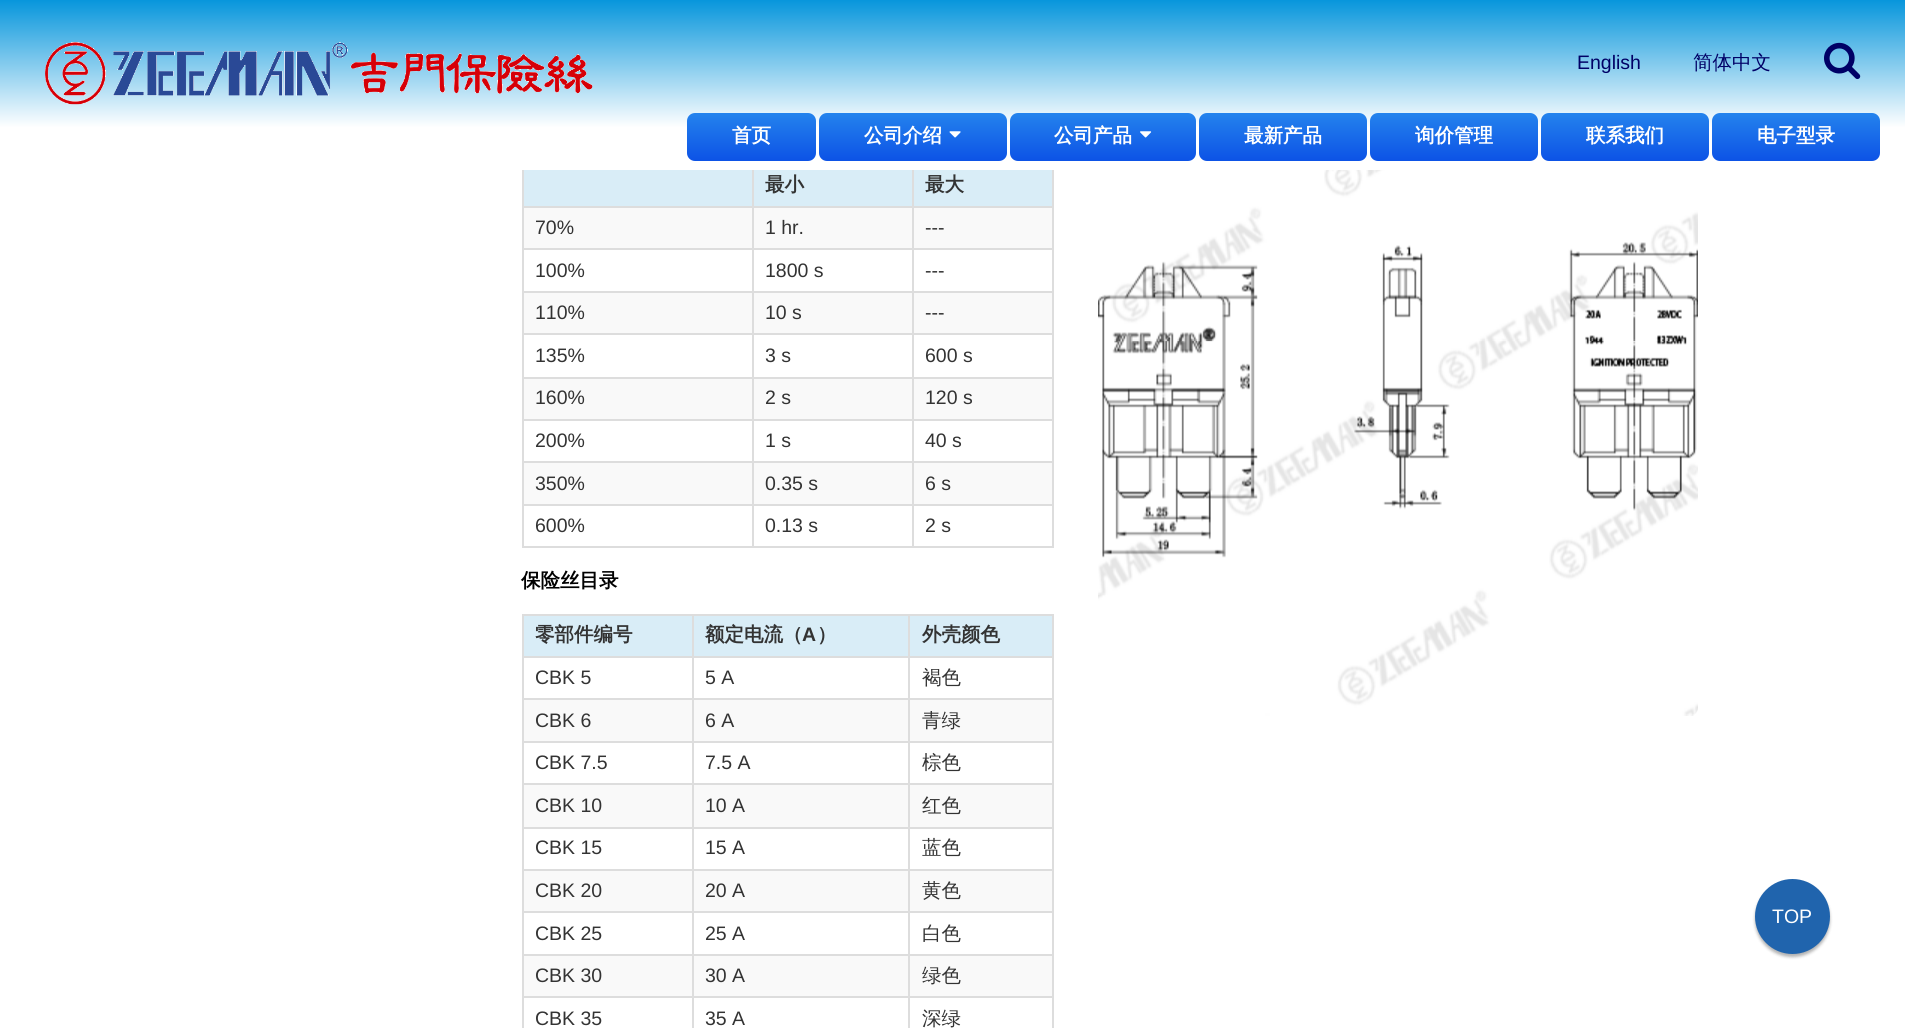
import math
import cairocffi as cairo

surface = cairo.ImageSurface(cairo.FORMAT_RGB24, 1905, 1028)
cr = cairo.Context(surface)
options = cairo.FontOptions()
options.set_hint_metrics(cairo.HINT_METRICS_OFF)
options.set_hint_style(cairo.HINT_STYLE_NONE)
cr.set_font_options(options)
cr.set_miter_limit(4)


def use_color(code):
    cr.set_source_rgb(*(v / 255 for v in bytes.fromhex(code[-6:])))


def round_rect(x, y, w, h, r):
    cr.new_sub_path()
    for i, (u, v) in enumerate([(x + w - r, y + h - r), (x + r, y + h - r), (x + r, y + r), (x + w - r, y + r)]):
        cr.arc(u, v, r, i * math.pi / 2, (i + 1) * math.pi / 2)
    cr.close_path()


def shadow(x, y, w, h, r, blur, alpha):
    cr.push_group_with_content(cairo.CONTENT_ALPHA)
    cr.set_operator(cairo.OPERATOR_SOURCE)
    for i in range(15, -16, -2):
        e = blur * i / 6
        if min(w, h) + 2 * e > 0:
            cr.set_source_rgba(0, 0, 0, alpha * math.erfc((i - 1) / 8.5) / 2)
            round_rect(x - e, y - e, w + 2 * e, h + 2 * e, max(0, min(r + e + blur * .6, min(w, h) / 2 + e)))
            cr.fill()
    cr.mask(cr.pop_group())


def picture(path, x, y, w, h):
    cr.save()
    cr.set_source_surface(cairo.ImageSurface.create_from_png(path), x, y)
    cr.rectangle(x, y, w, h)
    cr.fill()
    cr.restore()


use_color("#ffffff")
cr.paint()
use_color("#d9edf7")
cr.rectangle(524, 170, 528, 36)
cr.fill()
use_color("#dddddd")
cr.rectangle(1052, 170, 2, 378)
cr.fill()
cr.rectangle(522, 546, 531, 2)
cr.fill()
cr.rectangle(522, 170, 2, 378)
cr.fill()
cr.rectangle(912, 206, 141, 2)
cr.fill()
use_color("#f9f9f9")
cr.rectangle(524, 208, 528, 40)
cr.fill()
use_color("#dddddd")
cr.rectangle(912, 248, 141, 2)
cr.fill()
cr.rectangle(912, 291, 141, 2)
cr.fill()
use_color("#f9f9f9")
cr.rectangle(524, 293, 528, 40)
cr.fill()
use_color("#dddddd")
cr.rectangle(912, 333, 141, 2)
cr.fill()
cr.rectangle(912, 377, 141, 2)
cr.fill()
use_color("#f9f9f9")
cr.rectangle(524, 379, 528, 40)
cr.fill()
use_color("#dddddd")
cr.rectangle(912, 419, 141, 2)
cr.fill()
cr.rectangle(912, 461, 141, 2)
cr.fill()
use_color("#f9f9f9")
cr.rectangle(524, 463, 528, 41)
cr.fill()
use_color("#dddddd")
cr.rectangle(912, 504, 141, 2)
cr.fill()
cr.rectangle(912, 504, 2, 44)
cr.fill()
cr.rectangle(752, 504, 162, 2)
cr.fill()
cr.rectangle(912, 461, 2, 45)
cr.fill()
cr.rectangle(752, 461, 162, 2)
cr.fill()
cr.rectangle(912, 419, 2, 43)
cr.fill()
cr.rectangle(752, 419, 162, 2)
cr.fill()
cr.rectangle(912, 377, 2, 43)
cr.fill()
cr.rectangle(752, 377, 162, 2)
cr.fill()
cr.rectangle(912, 333, 2, 45)
cr.fill()
cr.rectangle(752, 333, 162, 2)
cr.fill()
cr.rectangle(912, 291, 2, 44)
cr.fill()
cr.rectangle(752, 291, 162, 2)
cr.fill()
cr.rectangle(912, 248, 2, 45)
cr.fill()
cr.rectangle(752, 248, 162, 2)
cr.fill()
cr.rectangle(912, 206, 2, 43)
cr.fill()
cr.rectangle(752, 206, 162, 2)
cr.fill()
cr.rectangle(752, 504, 2, 44)
cr.fill()
cr.rectangle(522, 504, 231, 2)
cr.fill()
cr.rectangle(752, 461, 2, 45)
cr.fill()
cr.rectangle(522, 461, 231, 2)
cr.fill()
cr.rectangle(752, 419, 2, 43)
cr.fill()
cr.rectangle(522, 419, 231, 2)
cr.fill()
cr.rectangle(752, 377, 2, 43)
cr.fill()
cr.rectangle(522, 377, 231, 2)
cr.fill()
cr.rectangle(752, 333, 2, 45)
cr.fill()
cr.rectangle(522, 333, 231, 2)
cr.fill()
cr.rectangle(752, 291, 2, 44)
cr.fill()
cr.rectangle(522, 291, 231, 2)
cr.fill()
cr.rectangle(752, 248, 2, 45)
cr.fill()
cr.rectangle(522, 248, 231, 2)
cr.fill()
cr.rectangle(752, 206, 2, 43)
cr.fill()
cr.rectangle(522, 206, 231, 2)
cr.fill()
cr.rectangle(752, 164, 2, 43)
cr.fill()
cr.rectangle(912, 164, 2, 43)
cr.fill()
gradient = cairo.LinearGradient(953, 0, 953, 170)
gradient.add_color_stop_rgba(0, 0.027, 0.588, 0.863, 1)
gradient.add_color_stop_rgba(0.75, 1, 1, 1, 1)
gradient.add_color_stop_rgba(1, 1, 1, 1, 1)
cr.set_source(gradient)
cr.rectangle(0, 0, 1905, 170)
cr.fill()
picture("img1.png", 45, 42, 548, 63)
cr.select_font_face("Liberation Sans")
cr.set_font_size(19.5)
use_color("#000066")
cr.move_to(1577, 69)
cr.show_text("English")
cr.select_font_face("WenQuanYi Zen Hei Medium")
cr.move_to(1693, 69)
cr.show_text("简体中文")
picture("img2.png", 1824, 42, 37, 38)
gradient = cairo.LinearGradient(752, 113, 752, 161)
gradient.add_color_stop_rgba(0, 0.141, 0.514, 0.929, 1)
gradient.add_color_stop_rgba(0.99, 0.051, 0.325, 0.902, 1)
cr.set_source(gradient)
round_rect(687, 113, 129, 48, 8)
cr.fill()
cr.select_font_face("WenQuanYi Zen Hei", cairo.FONT_SLANT_NORMAL, cairo.FONT_WEIGHT_BOLD)
use_color("#ffffff")
cr.move_to(732, 142)
cr.show_text("首页")
gradient = cairo.LinearGradient(913, 113, 913, 161)
gradient.add_color_stop_rgba(0, 0.141, 0.514, 0.929, 1)
gradient.add_color_stop_rgba(0.99, 0.051, 0.325, 0.902, 1)
cr.set_source(gradient)
round_rect(819, 113, 188, 48, 8)
cr.fill()
use_color("#ffffff")
cr.move_to(864, 142)
cr.show_text("公司介绍")
picture("img3.png", 949, 131, 12, 7)
gradient = cairo.LinearGradient(1103, 113, 1103, 161)
gradient.add_color_stop_rgba(0, 0.141, 0.514, 0.929, 1)
gradient.add_color_stop_rgba(0.99, 0.051, 0.325, 0.902, 1)
cr.set_source(gradient)
round_rect(1010, 113, 186, 48, 8)
cr.fill()
use_color("#ffffff")
cr.move_to(1054, 142)
cr.show_text("公司产品")
picture("img4.png", 1140, 131, 12, 7)
gradient = cairo.LinearGradient(1283, 113, 1283, 161)
gradient.add_color_stop_rgba(0, 0.141, 0.514, 0.929, 1)
gradient.add_color_stop_rgba(0.99, 0.051, 0.325, 0.902, 1)
cr.set_source(gradient)
round_rect(1199, 113, 168, 48, 8)
cr.fill()
use_color("#ffffff")
cr.move_to(1244, 142)
cr.show_text("最新产品")
gradient = cairo.LinearGradient(1454, 113, 1454, 161)
gradient.add_color_stop_rgba(0, 0.141, 0.514, 0.929, 1)
gradient.add_color_stop_rgba(0.99, 0.051, 0.325, 0.902, 1)
cr.set_source(gradient)
round_rect(1370, 113, 168, 48, 8)
cr.fill()
use_color("#ffffff")
cr.move_to(1415, 142)
cr.show_text("询价管理")
gradient = cairo.LinearGradient(1625, 113, 1625, 161)
gradient.add_color_stop_rgba(0, 0.141, 0.514, 0.929, 1)
gradient.add_color_stop_rgba(0.99, 0.051, 0.325, 0.902, 1)
cr.set_source(gradient)
round_rect(1541, 113, 168, 48, 8)
cr.fill()
use_color("#ffffff")
cr.move_to(1586, 142)
cr.show_text("联系我们")
gradient = cairo.LinearGradient(1796, 113, 1796, 161)
gradient.add_color_stop_rgba(0, 0.141, 0.514, 0.929, 1)
gradient.add_color_stop_rgba(0.99, 0.051, 0.325, 0.902, 1)
cr.set_source(gradient)
round_rect(1712, 113, 168, 48, 8)
cr.fill()
use_color("#ffffff")
cr.move_to(1757, 142)
cr.show_text("电子型录")
use_color("#333333")
cr.move_to(765, 191)
cr.show_text("最小")
cr.move_to(925, 191)
cr.show_text("最大")
cr.select_font_face("Liberation Sans")
cr.move_to(535, 234)
cr.show_text("70%")
cr.move_to(765, 234)
cr.show_text("1 hr.")
cr.move_to(925, 234)
cr.show_text("---")
cr.move_to(535, 277)
cr.show_text("100%")
cr.move_to(765, 277)
cr.show_text("1800 s")
cr.move_to(925, 277)
cr.show_text("---")
cr.move_to(535, 319)
cr.show_text("110%")
cr.move_to(765, 319)
cr.show_text("10 s")
cr.move_to(925, 319)
cr.show_text("---")
cr.move_to(535, 362)
cr.show_text("135%")
cr.move_to(765, 362)
cr.show_text("3 s")
cr.move_to(925, 362)
cr.show_text("600 s")
cr.move_to(535, 404)
cr.show_text("160%")
cr.move_to(765, 404)
cr.show_text("2 s")
cr.move_to(925, 404)
cr.show_text("120 s")
cr.move_to(535, 447)
cr.show_text("200%")
cr.move_to(765, 447)
cr.show_text("1 s")
cr.move_to(925, 447)
cr.show_text("40 s")
cr.move_to(535, 490)
cr.show_text("350%")
cr.move_to(765, 490)
cr.show_text("0.35 s")
cr.move_to(925, 490)
cr.show_text("6 s")
cr.move_to(535, 532)
cr.show_text("600%")
cr.move_to(765, 532)
cr.show_text("0.13 s")
cr.move_to(925, 532)
cr.show_text("2 s")
cr.select_font_face("WenQuanYi Zen Hei", cairo.FONT_SLANT_NORMAL, cairo.FONT_WEIGHT_BOLD)
use_color("#000000")
cr.move_to(521, 587)
cr.show_text("保险丝目录")
use_color("#dddddd")
cr.rectangle(522, 614, 531, 2)
cr.fill()
cr.rectangle(1052, 614, 2, 414)
cr.fill()
cr.rectangle(522, 614, 2, 414)
cr.fill()
use_color("#d9edf7")
cr.rectangle(524, 616, 528, 40)
cr.fill()
use_color("#333333")
cr.move_to(535, 641)
cr.show_text("零部件编号")
use_color("#dddddd")
cr.rectangle(908, 656, 145, 2)
cr.fill()
cr.rectangle(908, 698, 145, 2)
cr.fill()
use_color("#f9f9f9")
cr.rectangle(524, 700, 528, 41)
cr.fill()
use_color("#dddddd")
cr.rectangle(908, 741, 145, 2)
cr.fill()
cr.rectangle(908, 783, 145, 2)
cr.fill()
use_color("#f9f9f9")
cr.rectangle(524, 785, 528, 42)
cr.fill()
use_color("#dddddd")
cr.rectangle(908, 827, 145, 2)
cr.fill()
cr.rectangle(908, 869, 145, 2)
cr.fill()
use_color("#f9f9f9")
cr.rectangle(524, 871, 528, 40)
cr.fill()
use_color("#dddddd")
cr.rectangle(908, 911, 145, 2)
cr.fill()
cr.rectangle(908, 954, 145, 2)
cr.fill()
use_color("#f9f9f9")
cr.rectangle(524, 956, 528, 40)
cr.fill()
use_color("#dddddd")
cr.rectangle(908, 996, 145, 2)
cr.fill()
cr.rectangle(908, 996, 2, 32)
cr.fill()
cr.rectangle(692, 996, 217, 2)
cr.fill()
cr.rectangle(908, 954, 2, 44)
cr.fill()
cr.rectangle(692, 954, 217, 2)
cr.fill()
cr.rectangle(908, 911, 2, 45)
cr.fill()
cr.rectangle(692, 911, 217, 2)
cr.fill()
cr.rectangle(908, 869, 2, 43)
cr.fill()
cr.rectangle(692, 869, 217, 2)
cr.fill()
cr.rectangle(908, 827, 2, 43)
cr.fill()
cr.rectangle(692, 827, 217, 2)
cr.fill()
cr.rectangle(908, 783, 2, 45)
cr.fill()
cr.rectangle(692, 783, 217, 2)
cr.fill()
cr.rectangle(908, 741, 2, 44)
cr.fill()
cr.rectangle(692, 741, 217, 2)
cr.fill()
cr.rectangle(908, 698, 2, 45)
cr.fill()
cr.rectangle(692, 698, 217, 2)
cr.fill()
cr.rectangle(908, 656, 2, 43)
cr.fill()
cr.rectangle(692, 656, 217, 2)
cr.fill()
cr.rectangle(692, 996, 2, 32)
cr.fill()
cr.rectangle(522, 996, 171, 2)
cr.fill()
cr.rectangle(692, 954, 2, 44)
cr.fill()
cr.rectangle(522, 954, 171, 2)
cr.fill()
cr.rectangle(692, 911, 2, 45)
cr.fill()
cr.rectangle(522, 911, 171, 2)
cr.fill()
cr.rectangle(692, 869, 2, 43)
cr.fill()
cr.rectangle(522, 869, 171, 2)
cr.fill()
cr.rectangle(692, 827, 2, 43)
cr.fill()
cr.rectangle(522, 827, 171, 2)
cr.fill()
cr.rectangle(692, 783, 2, 45)
cr.fill()
cr.rectangle(522, 783, 171, 2)
cr.fill()
cr.rectangle(692, 741, 2, 44)
cr.fill()
cr.rectangle(522, 741, 171, 2)
cr.fill()
cr.rectangle(692, 698, 2, 45)
cr.fill()
cr.rectangle(522, 698, 171, 2)
cr.fill()
cr.rectangle(692, 656, 2, 43)
cr.fill()
cr.rectangle(522, 656, 171, 2)
cr.fill()
cr.rectangle(692, 614, 2, 43)
cr.fill()
use_color("#333333")
cr.move_to(705, 641)
cr.show_text("额定电流（")
cr.select_font_face("Liberation Sans", cairo.FONT_SLANT_NORMAL, cairo.FONT_WEIGHT_BOLD)
cr.move_to(802, 641)
cr.show_text("A")
cr.select_font_face("WenQuanYi Zen Hei", cairo.FONT_SLANT_NORMAL, cairo.FONT_WEIGHT_BOLD)
cr.move_to(817, 641)
cr.show_text("）")
use_color("#dddddd")
cr.rectangle(908, 614, 2, 43)
cr.fill()
use_color("#333333")
cr.move_to(922, 641)
cr.show_text("外壳颜色")
cr.select_font_face("Liberation Sans")
cr.move_to(535, 684)
cr.show_text("CBK 5")
cr.move_to(705, 684)
cr.show_text("5 A")
cr.select_font_face("WenQuanYi Zen Hei Medium")
cr.move_to(922, 684)
cr.show_text("褐色")
cr.select_font_face("Liberation Sans")
cr.move_to(535, 727)
cr.show_text("CBK 6")
cr.move_to(705, 727)
cr.show_text("6 A")
cr.select_font_face("WenQuanYi Zen Hei Medium")
cr.move_to(922, 727)
cr.show_text("青绿")
cr.select_font_face("Liberation Sans")
cr.move_to(535, 769)
cr.show_text("CBK 7.5")
cr.move_to(705, 769)
cr.show_text("7.5 A")
cr.select_font_face("WenQuanYi Zen Hei Medium")
cr.move_to(922, 769)
cr.show_text("棕色")
cr.select_font_face("Liberation Sans")
cr.move_to(535, 812)
cr.show_text("CBK 10")
cr.move_to(705, 812)
cr.show_text("10 A")
cr.select_font_face("WenQuanYi Zen Hei Medium")
cr.move_to(922, 812)
cr.show_text("红色")
cr.select_font_face("Liberation Sans")
cr.move_to(535, 854)
cr.show_text("CBK 15")
cr.move_to(705, 854)
cr.show_text("15 A")
cr.select_font_face("WenQuanYi Zen Hei Medium")
cr.move_to(922, 854)
cr.show_text("蓝色")
cr.select_font_face("Liberation Sans")
cr.move_to(535, 897)
cr.show_text("CBK 20")
cr.move_to(705, 897)
cr.show_text("20 A")
cr.select_font_face("WenQuanYi Zen Hei Medium")
cr.move_to(922, 897)
cr.show_text("黄色")
cr.select_font_face("Liberation Sans")
cr.move_to(535, 940)
cr.show_text("CBK 25")
cr.move_to(705, 940)
cr.show_text("25 A")
cr.select_font_face("WenQuanYi Zen Hei Medium")
cr.move_to(922, 940)
cr.show_text("白色")
cr.select_font_face("Liberation Sans")
cr.move_to(535, 982)
cr.show_text("CBK 30")
cr.move_to(705, 982)
cr.show_text("30 A")
cr.select_font_face("WenQuanYi Zen Hei Medium")
cr.move_to(922, 982)
cr.show_text("绿色")
cr.select_font_face("Liberation Sans")
cr.move_to(535, 1025)
cr.show_text("CBK 35")
cr.move_to(705, 1025)
cr.show_text("35 A")
cr.select_font_face("WenQuanYi Zen Hei Medium")
cr.move_to(922, 1025)
cr.show_text("深绿")
picture("img5.png", 1098, 170, 600, 546)
use_color("#000000")
shadow(1755, 882, 75, 75, 37.5, 1.5, 0.3)
use_color("#2064ad")
cr.arc(1792.5, 916.5, 37.5, 0, 2 * math.pi)
cr.fill()
cr.select_font_face("Liberation Sans")
use_color("#ffffff")
cr.move_to(1772, 923)
cr.show_text("TOP")
surface.write_to_png("result.png")
